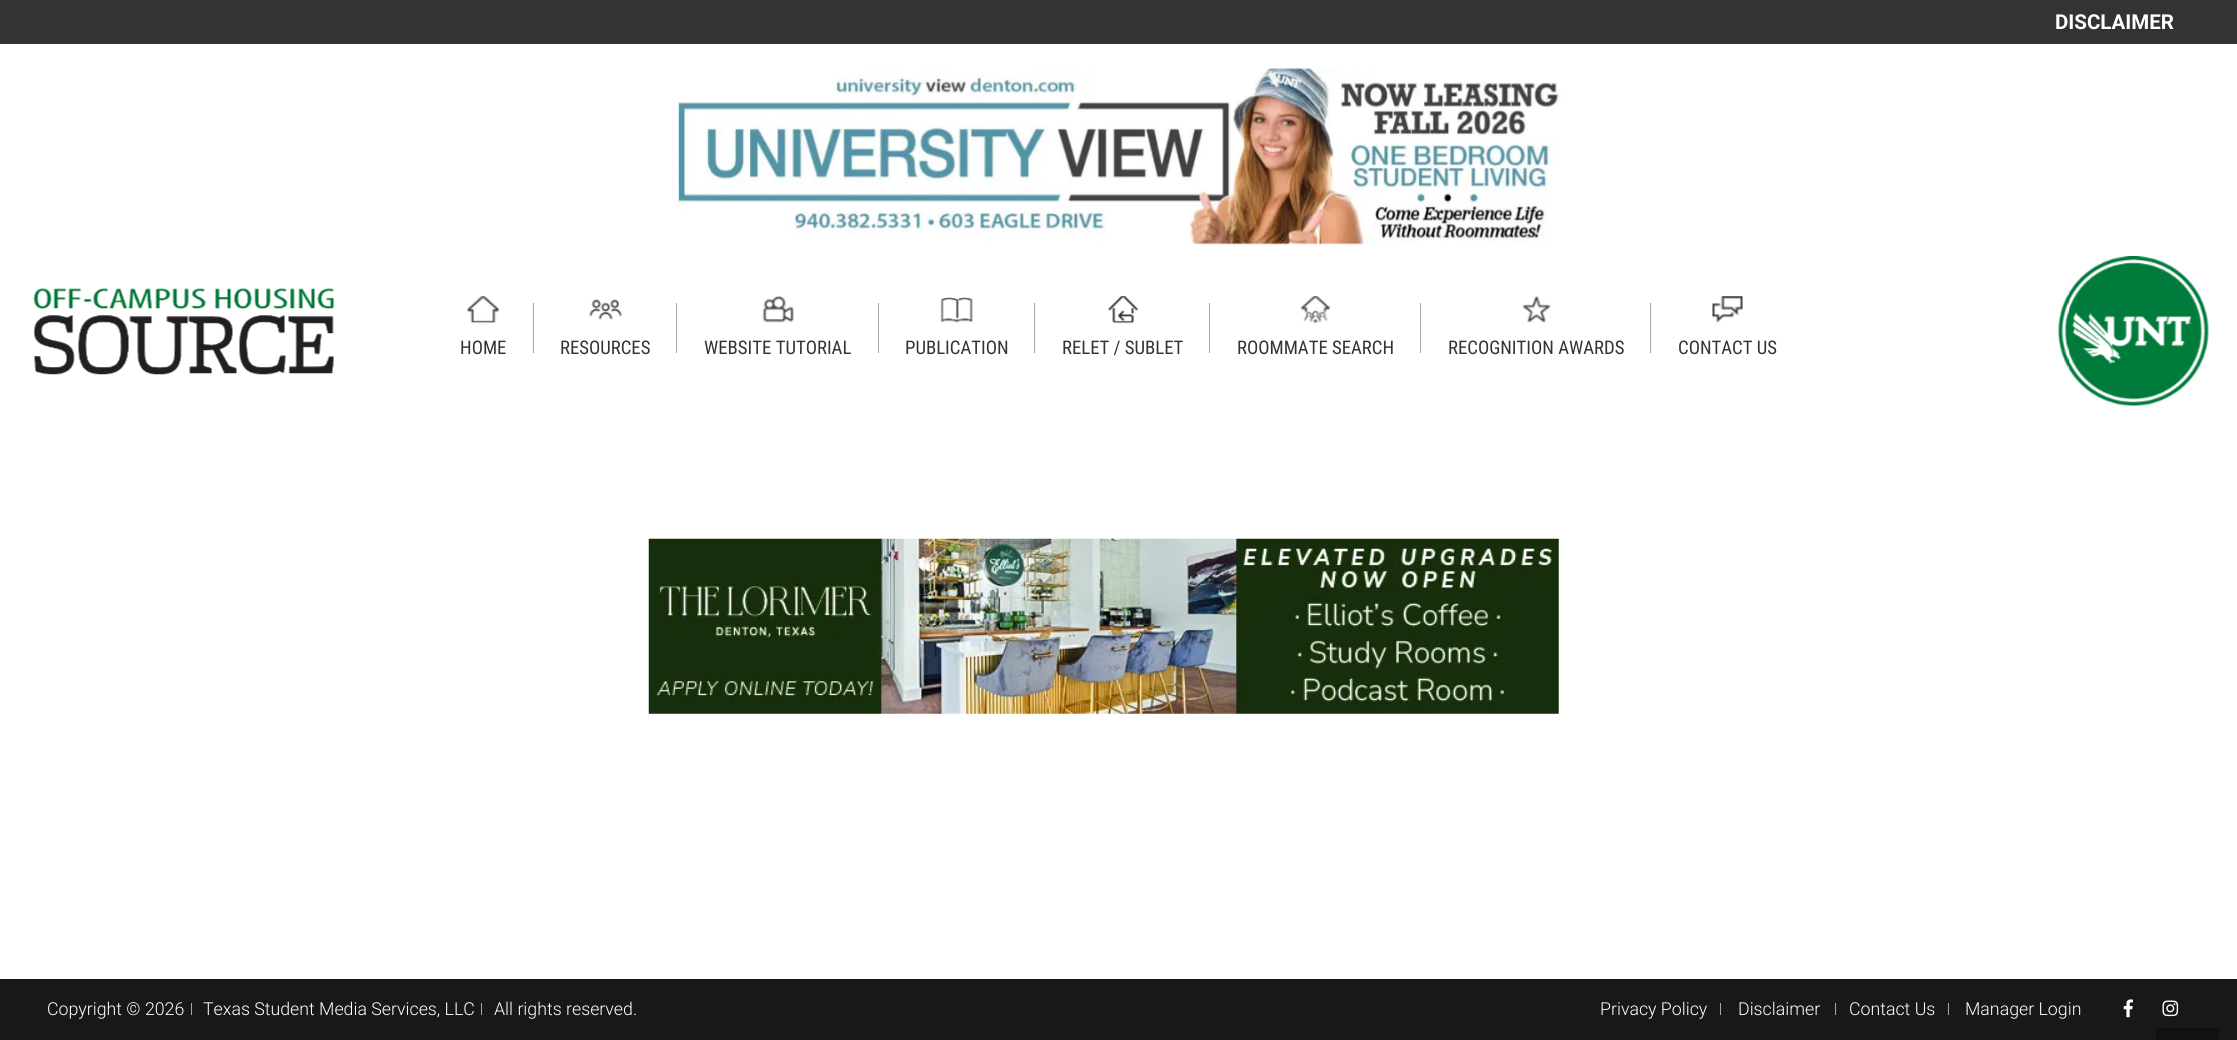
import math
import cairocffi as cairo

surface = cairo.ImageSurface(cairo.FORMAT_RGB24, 2237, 1040)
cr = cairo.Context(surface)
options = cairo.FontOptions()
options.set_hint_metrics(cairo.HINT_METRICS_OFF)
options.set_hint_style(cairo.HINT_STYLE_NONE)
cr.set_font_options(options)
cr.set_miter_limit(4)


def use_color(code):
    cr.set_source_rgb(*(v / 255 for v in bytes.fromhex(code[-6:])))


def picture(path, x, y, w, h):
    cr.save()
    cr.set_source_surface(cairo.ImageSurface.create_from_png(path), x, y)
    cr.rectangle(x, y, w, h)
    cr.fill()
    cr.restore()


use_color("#ffffff")
cr.paint()
use_color("#333333")
cr.rectangle(0, 0, 2237, 44)
cr.fill()
cr.select_font_face("Roboto", cairo.FONT_SLANT_NORMAL, cairo.FONT_WEIGHT_BOLD)
cr.set_font_size(20.5)
use_color("#ffffff")
cr.move_to(2055, 29)
cr.show_text("DISCLAIMER")
picture("img1.png", 677, 68, 884, 177)
picture("img2.png", 33, 288, 301, 87)
picture("img3.png", 467, 296, 33, 28)
use_color("#a7a7a7")
cr.rectangle(533, 303, 1, 50)
cr.fill()
cr.select_font_face("Roboto Condensed")
cr.set_font_size(18.75)
use_color("#333333")
cr.move_to(460, 354)
cr.show_text("HOME")
picture("img4.png", 589, 299, 33, 21)
use_color("#a7a7a7")
cr.rectangle(676, 303, 1, 50)
cr.fill()
use_color("#333333")
cr.move_to(560, 354)
cr.show_text("RESOURCES")
picture("img5.png", 762, 296, 32, 27)
use_color("#a7a7a7")
cr.rectangle(878, 303, 1, 50)
cr.fill()
use_color("#333333")
cr.move_to(704, 354)
cr.show_text("WEBSITE TUTORIAL")
picture("img6.png", 940, 297, 33, 26)
use_color("#a7a7a7")
cr.rectangle(1034, 303, 1, 50)
cr.fill()
use_color("#333333")
cr.move_to(905, 354)
cr.show_text("PUBLICATION")
picture("img7.png", 1108, 296, 30, 28)
use_color("#a7a7a7")
cr.rectangle(1209, 303, 1, 50)
cr.fill()
use_color("#333333")
cr.move_to(1062, 354)
cr.show_text("RELET / SUBLET")
picture("img8.png", 1300, 296, 31, 28)
use_color("#a7a7a7")
cr.rectangle(1420, 303, 1, 50)
cr.fill()
use_color("#333333")
cr.move_to(1237, 354)
cr.show_text("ROOMMATE SEARCH")
picture("img9.png", 1522, 296, 29, 27)
use_color("#a7a7a7")
cr.rectangle(1650, 303, 1, 50)
cr.fill()
use_color("#333333")
cr.move_to(1448, 354)
cr.show_text("RECOGNITION AWARDS")
picture("img10.png", 1712, 296, 31, 27)
cr.move_to(1678, 354)
cr.show_text("CONTACT US")
picture("img11.png", 2058, 256, 151, 150)
picture("img12.png", 648, 538, 911, 176)
use_color("#181818")
cr.rectangle(0, 979, 2237, 61)
cr.fill()
cr.select_font_face("Roboto Light")
cr.set_font_size(17.75)
use_color("#ffffff")
cr.move_to(47, 1015)
cr.show_text("Copyright © 2026")
use_color("#a7a7a7")
cr.rectangle(191, 1003, 1, 12)
cr.fill()
use_color("#ffffff")
cr.move_to(203, 1015)
cr.show_text("Texas Student Media Services, LLC")
use_color("#a7a7a7")
cr.rectangle(481, 1003, 1, 12)
cr.fill()
use_color("#ffffff")
cr.move_to(494, 1015)
cr.show_text("All rights reserved.")
cr.move_to(1600, 1015)
cr.show_text("Privacy Policy")
use_color("#a7a7a7")
cr.rectangle(1720, 1003, 1, 12)
cr.fill()
use_color("#ffffff")
cr.move_to(1738, 1015)
cr.show_text("Disclaimer")
use_color("#a7a7a7")
cr.rectangle(1835, 1003, 1, 12)
cr.fill()
use_color("#ffffff")
cr.move_to(1849, 1015)
cr.show_text("Contact Us")
use_color("#a7a7a7")
cr.rectangle(1948, 1003, 1, 12)
cr.fill()
use_color("#ffffff")
cr.move_to(1965, 1015)
cr.show_text("Manager Login")
picture("img13.png", 2123, 999, 10, 19)
picture("img14.png", 2162, 1000, 17, 17)
use_color("#111111")
cr.rectangle(2156, 1028, 63, 12)
cr.fill()
surface.write_to_png("result.png")
